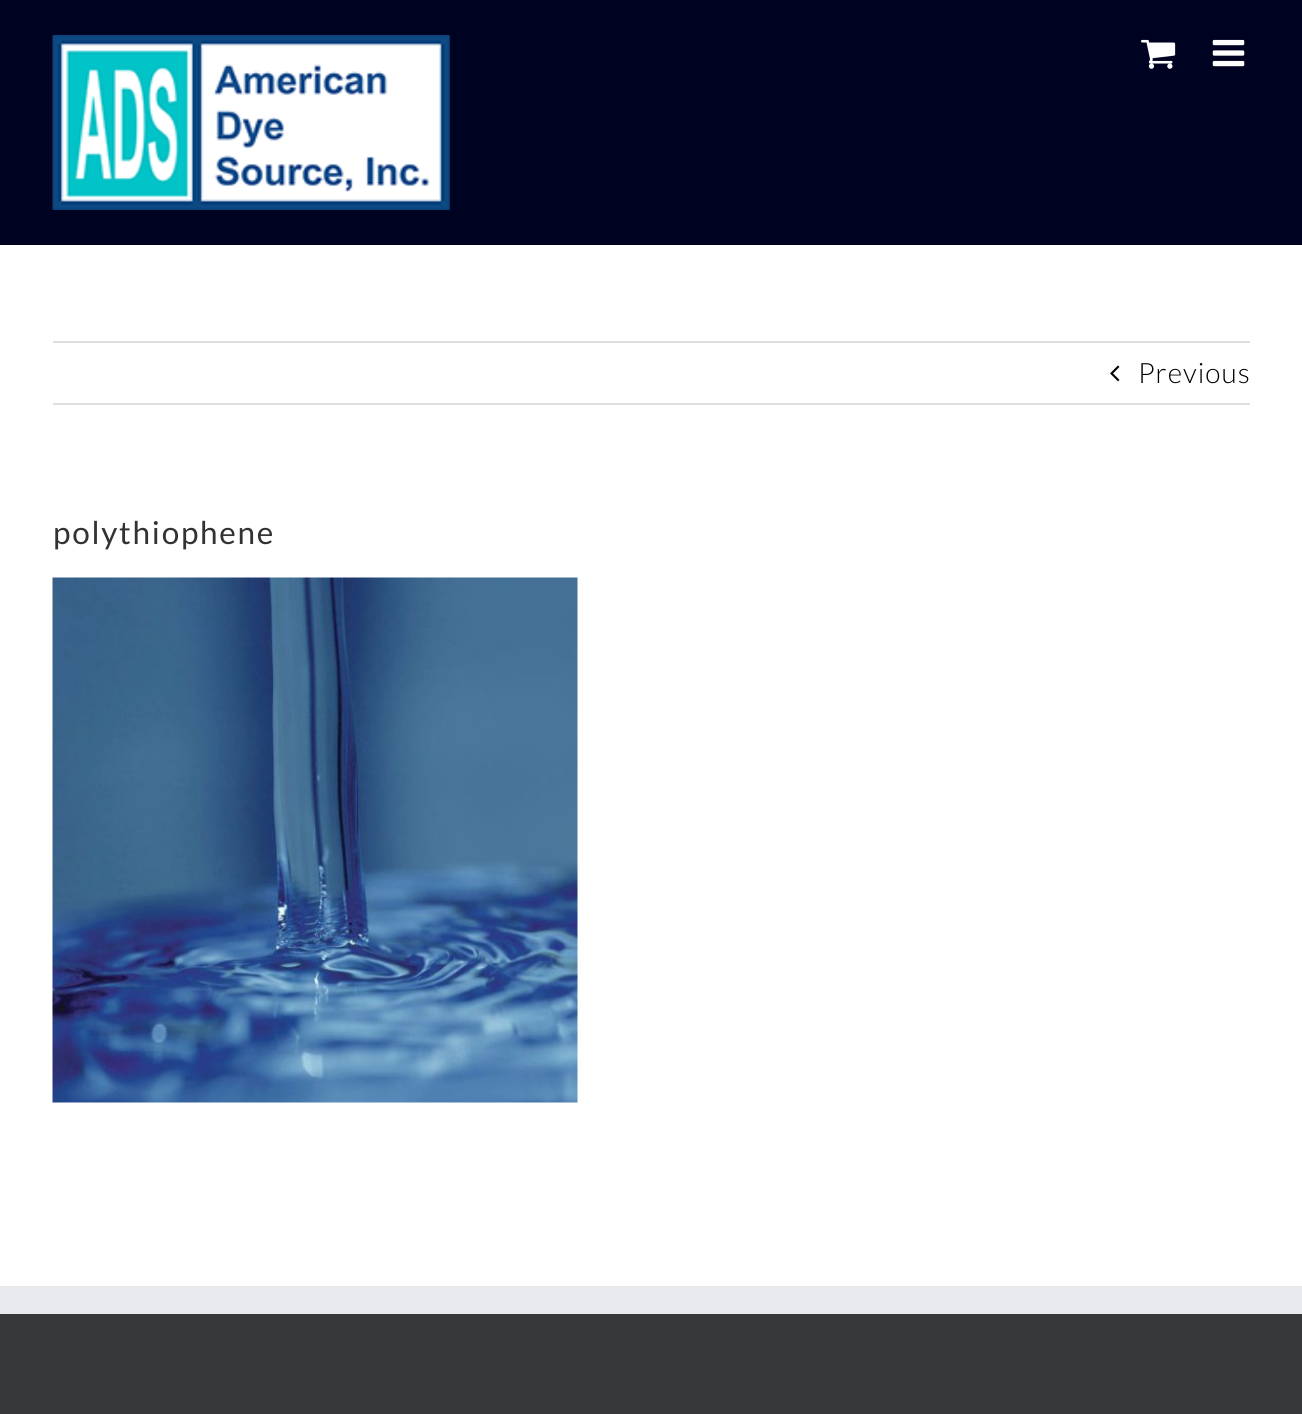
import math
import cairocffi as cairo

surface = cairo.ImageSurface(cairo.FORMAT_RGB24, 1302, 1414)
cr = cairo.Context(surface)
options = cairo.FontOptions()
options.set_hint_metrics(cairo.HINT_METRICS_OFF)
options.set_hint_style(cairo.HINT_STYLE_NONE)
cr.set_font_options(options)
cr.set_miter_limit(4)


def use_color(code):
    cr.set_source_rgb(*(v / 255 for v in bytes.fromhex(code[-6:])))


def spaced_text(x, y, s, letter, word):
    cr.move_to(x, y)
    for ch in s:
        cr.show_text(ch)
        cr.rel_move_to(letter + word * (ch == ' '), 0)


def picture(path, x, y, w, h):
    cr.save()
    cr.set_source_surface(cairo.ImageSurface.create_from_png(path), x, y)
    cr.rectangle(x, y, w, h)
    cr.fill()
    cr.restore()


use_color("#ffffff")
cr.paint()
use_color("#000221")
cr.rectangle(0, 0, 1302, 245)
cr.fill()
picture("img1.png", 52, 35, 398, 175)
picture("img2.png", 1141, 39, 35, 30)
picture("img3.png", 1212, 39, 33, 28)
use_color("#e0dede")
cr.rectangle(53, 341, 1197, 2)
cr.fill()
cr.rectangle(53, 403, 1197, 2)
cr.fill()
picture("img4.png", 1110, 365, 10, 17)
cr.select_font_face("Lato Light")
cr.set_font_size(28)
use_color("#000000")
spaced_text(1138, 383, "Previous", 1, 0)
cr.select_font_face("Lato")
cr.set_font_size(31.5)
use_color("#333333")
spaced_text(53, 544, "polythiophene", 1.75, 0)
picture("img5.png", 52, 577, 526, 526)
use_color("#363839")
cr.rectangle(0, 1314, 1302, 100)
cr.fill()
use_color("#e9eaee")
cr.rectangle(0, 1286, 1302, 28)
cr.fill()
surface.write_to_png("result.png")
